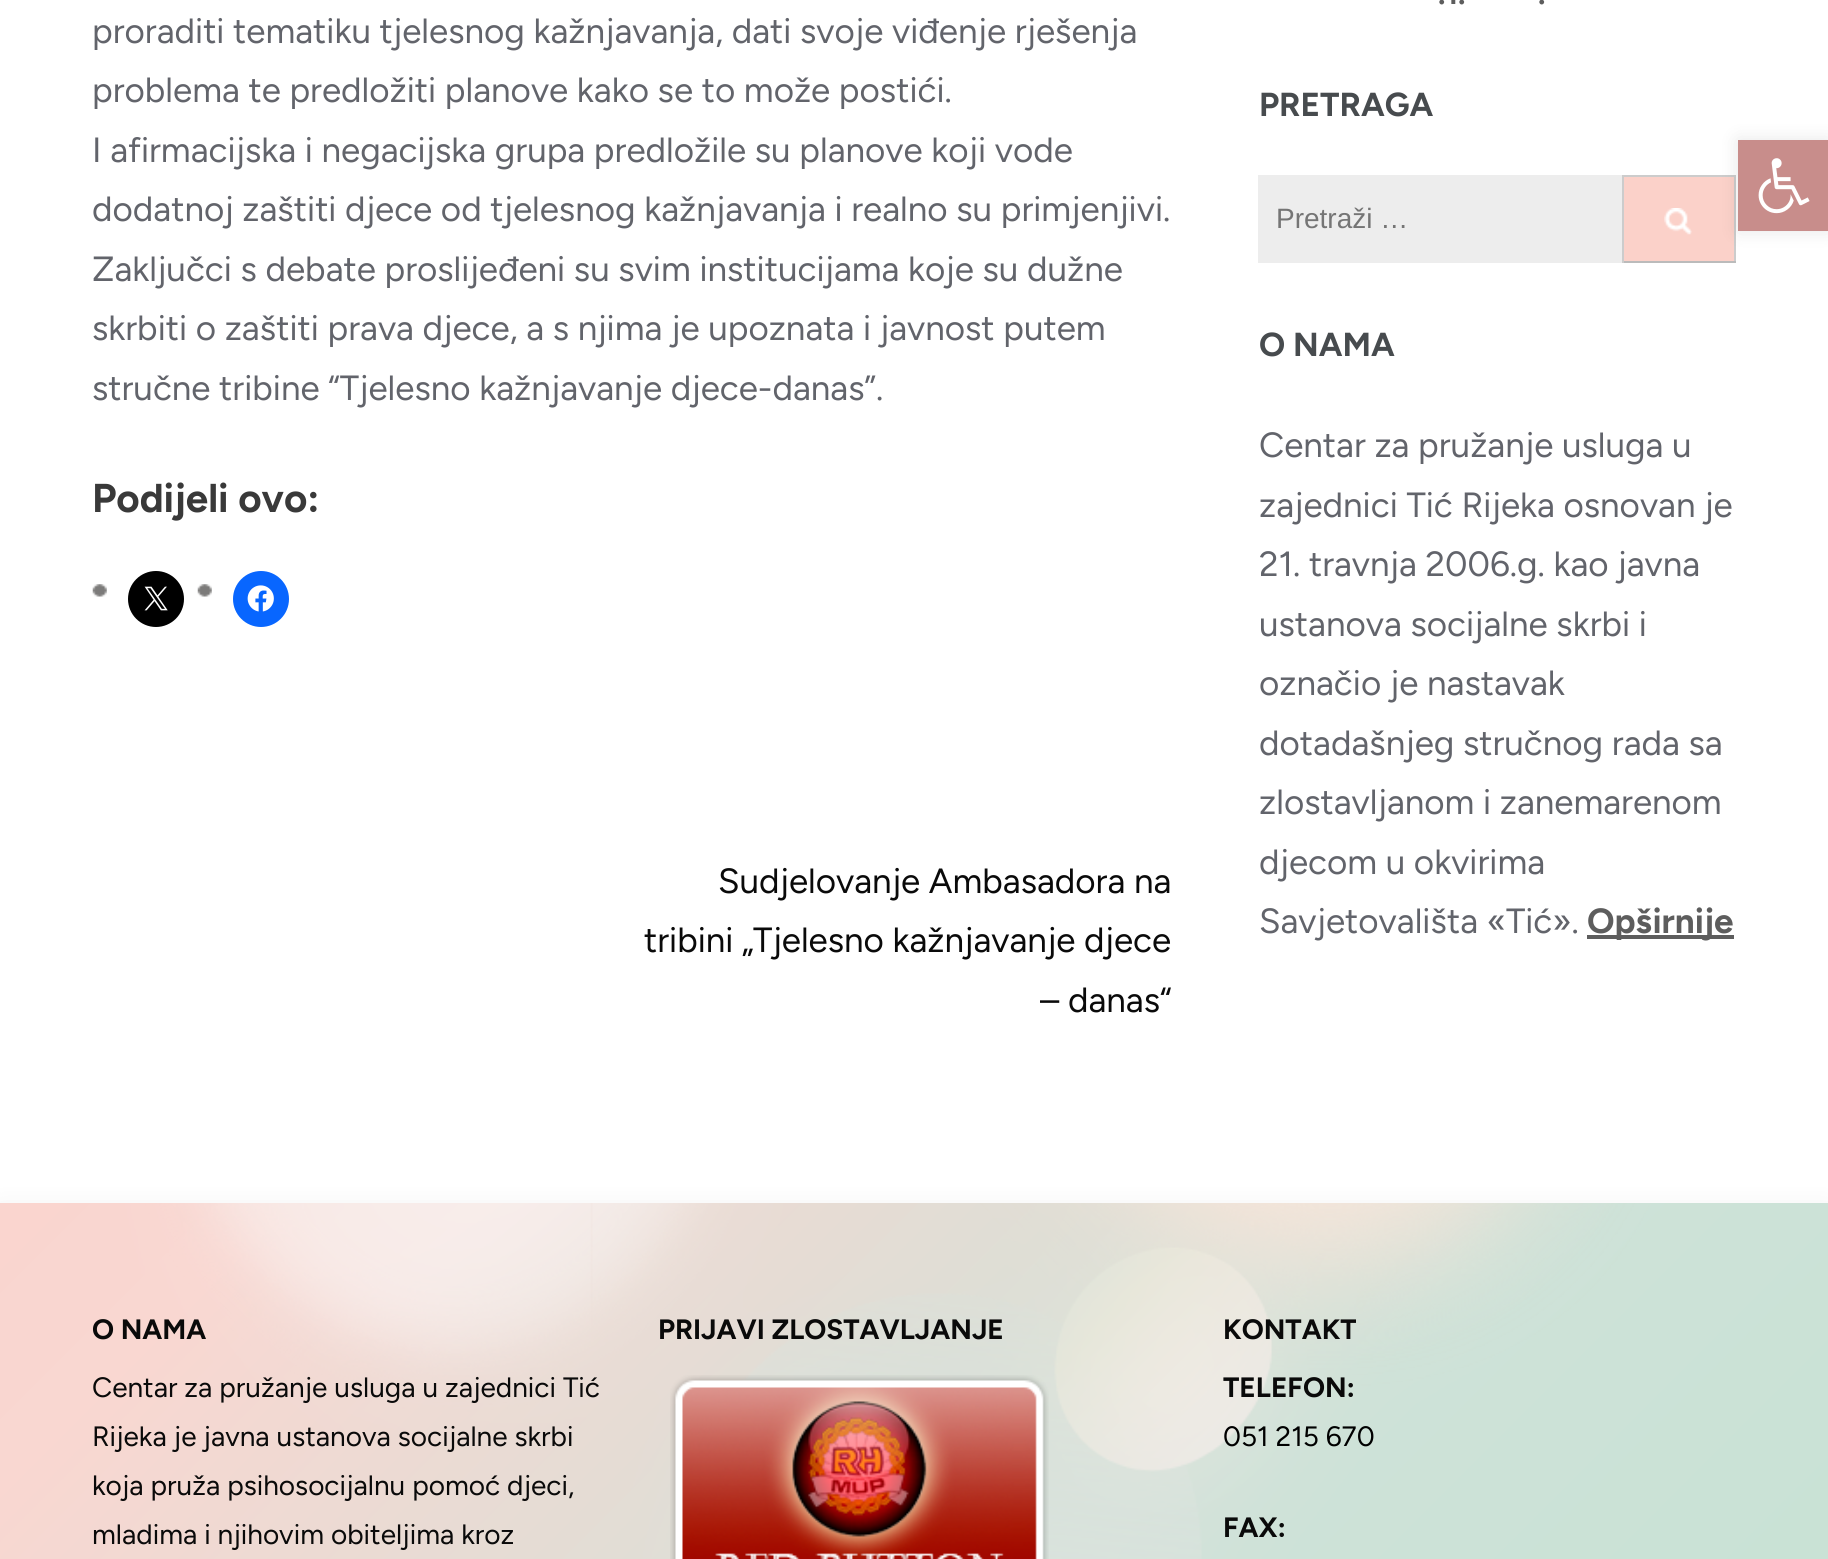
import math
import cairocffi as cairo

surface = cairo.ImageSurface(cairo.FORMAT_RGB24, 1828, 1559)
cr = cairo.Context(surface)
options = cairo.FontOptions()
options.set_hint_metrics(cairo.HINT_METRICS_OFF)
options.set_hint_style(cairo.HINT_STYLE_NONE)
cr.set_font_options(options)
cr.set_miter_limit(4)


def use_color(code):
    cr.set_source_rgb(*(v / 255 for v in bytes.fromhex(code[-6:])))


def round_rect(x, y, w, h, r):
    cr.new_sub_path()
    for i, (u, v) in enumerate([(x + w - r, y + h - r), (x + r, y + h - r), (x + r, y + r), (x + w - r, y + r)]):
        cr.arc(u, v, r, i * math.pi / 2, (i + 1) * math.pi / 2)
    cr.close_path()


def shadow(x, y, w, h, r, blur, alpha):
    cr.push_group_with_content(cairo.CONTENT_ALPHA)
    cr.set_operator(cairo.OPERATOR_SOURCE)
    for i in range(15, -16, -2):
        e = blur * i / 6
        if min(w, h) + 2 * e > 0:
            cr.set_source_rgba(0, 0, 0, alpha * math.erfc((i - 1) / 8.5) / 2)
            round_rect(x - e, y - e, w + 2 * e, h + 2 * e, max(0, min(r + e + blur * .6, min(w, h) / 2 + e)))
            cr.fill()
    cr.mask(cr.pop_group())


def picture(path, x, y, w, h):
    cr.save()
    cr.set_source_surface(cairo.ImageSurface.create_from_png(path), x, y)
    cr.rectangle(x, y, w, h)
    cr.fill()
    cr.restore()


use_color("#ffffff")
cr.paint()
cr.select_font_face("Figtree")
cr.set_font_size(35)
use_color("#62646b")
cr.move_to(92, 43)
cr.show_text("proraditi tematiku tjelesnog kažnjavanja, dati svoje viđenje rješenja")
cr.move_to(92, 102)
cr.show_text("problema te predložiti planove kako se to može postići.")
cr.move_to(92, 162)
cr.show_text("I afirmacijska i negacijska grupa predložile su planove koji vode")
cr.move_to(92, 221)
cr.show_text("dodatnoj zaštiti djece od tjelesnog kažnjavanja i realno su primjenjivi.")
cr.move_to(92, 281)
cr.show_text("Zaključci s debate proslijeđeni su svim institucijama koje su dužne")
cr.move_to(92, 340)
cr.show_text("skrbiti o zaštiti prava djece, a s njima je upoznata i javnost putem")
cr.move_to(92, 400)
cr.show_text("stručne tribine “Tjelesno kažnjavanje djece-danas”.")
cr.select_font_face("Figtree", cairo.FONT_SLANT_NORMAL, cairo.FONT_WEIGHT_BOLD)
cr.set_font_size(40.25)
use_color("#393939")
cr.move_to(92, 512)
cr.show_text("Podijeli ovo:")
picture("img1.png", 92, 584, 15, 13)
use_color("#000000")
cr.arc(156, 599, 28, 0, 2 * math.pi)
cr.fill()
picture("img2.png", 144, 586, 24, 25)
picture("img1.png", 197, 584, 15, 13)
use_color("#0866ff")
cr.arc(261, 599, 28, 0, 2 * math.pi)
cr.fill()
picture("img3.png", 247, 585, 27, 27)
cr.select_font_face("Figtree")
cr.set_font_size(35)
use_color("#0a0a0a")
cr.move_to(718, 893)
cr.show_text("Sudjelovanje Ambasadora na")
cr.move_to(644, 952)
cr.show_text("tribini „Tjelesno kažnjavanje djece")
cr.move_to(1040, 1012)
cr.show_text("– danas“")
cr.select_font_face("Figtree", cairo.FONT_SLANT_NORMAL, cairo.FONT_WEIGHT_BOLD)
cr.set_font_size(30)
use_color("#5d5d5d")
cr.move_to(1438, 4)
cr.show_text(".1.")
cr.move_to(1538, 4)
cr.show_text(".")
cr.set_font_size(33.25)
use_color("#474b4e")
cr.move_to(1259, 116)
cr.show_text("PRETRAGA")
use_color("#ededed")
cr.rectangle(1258, 175, 364, 88)
cr.fill()
cr.select_font_face("Liberation Sans")
cr.set_font_size(28)
use_color("#757575")
cr.move_to(1276, 228)
cr.show_text("Pretraži …")
use_color("#fbd1c9")
cr.rectangle(1624, 177, 110, 84)
cr.fill()
picture("img4.png", 1664, 208, 28, 27)
use_color("#cccccc")
cr.rectangle(1622, 175, 114, 2)
cr.fill()
cr.rectangle(1734, 175, 2, 88)
cr.fill()
use_color("#bbbbbb")
cr.rectangle(1622, 261, 114, 2)
cr.fill()
use_color("#cccccc")
cr.rectangle(1622, 175, 2, 88)
cr.fill()
cr.select_font_face("Figtree", cairo.FONT_SLANT_NORMAL, cairo.FONT_WEIGHT_BOLD)
cr.set_font_size(33.25)
use_color("#474b4e")
cr.move_to(1259, 356)
cr.show_text("O NAMA")
cr.select_font_face("Figtree")
cr.set_font_size(35)
use_color("#62646b")
cr.move_to(1259, 457)
cr.show_text("Centar za pružanje usluga u")
cr.move_to(1259, 517)
cr.show_text("zajednici Tić Rijeka osnovan je")
cr.move_to(1259, 576)
cr.show_text("21. travnja 2006.g. kao javna")
cr.move_to(1259, 636)
cr.show_text("ustanova socijalne skrbi i")
cr.move_to(1259, 695)
cr.show_text("označio je nastavak")
cr.move_to(1259, 755)
cr.show_text("dotadašnjeg stručnog rada sa")
cr.move_to(1259, 814)
cr.show_text("zlostavljanom i zanemarenom")
cr.move_to(1259, 874)
cr.show_text("djecom u okvirima")
cr.move_to(1259, 933)
cr.show_text("Savjetovališta «Tić».")
use_color("#5d5d5d")
cr.rectangle(1587, 935, 147, 4)
cr.fill()
cr.select_font_face("Figtree", cairo.FONT_SLANT_NORMAL, cairo.FONT_WEIGHT_BOLD)
cr.move_to(1587, 933)
cr.show_text("Opširnije")
use_color("#111111")
shadow(0, 1211, 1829, 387, 0, 13, 0.09)
picture("img5.png", 0, 1203, 1828, 356)
cr.set_font_size(28)
use_color("#0a0a0a")
cr.move_to(92, 1339)
cr.show_text("O NAMA")
cr.select_font_face("Figtree")
cr.move_to(92, 1397)
cr.show_text("Centar za pružanje usluga u zajednici Tić")
cr.move_to(92, 1446)
cr.show_text("Rijeka je javna ustanova socijalne skrbi")
cr.move_to(92, 1495)
cr.show_text("koja pruža psihosocijalnu pomoć djeci,")
cr.move_to(92, 1544)
cr.show_text("mladima i njihovim obiteljima kroz")
cr.select_font_face("Figtree", cairo.FONT_SLANT_NORMAL, cairo.FONT_WEIGHT_BOLD)
cr.move_to(658, 1339)
cr.show_text("PRIJAVI ZLOSTAVLJANJE")
picture("img6.png", 670, 1375, 379, 184)
cr.move_to(1223, 1339)
cr.show_text("KONTAKT")
cr.move_to(1223, 1397)
cr.show_text("TELEFON:")
cr.select_font_face("Figtree")
use_color("#000000")
cr.move_to(1223, 1446)
cr.show_text("051 215 670")
cr.select_font_face("Figtree", cairo.FONT_SLANT_NORMAL, cairo.FONT_WEIGHT_BOLD)
use_color("#0a0a0a")
cr.move_to(1223, 1537)
cr.show_text("FAX:")
use_color("#000000")
shadow(1738, 140, 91, 91, 0, 9, 0.1)
use_color("#c88d8b")
cr.rectangle(1738, 140, 90, 91)
cr.fill()
picture("img7.png", 1758, 158, 52, 56)
surface.write_to_png("result.png")
